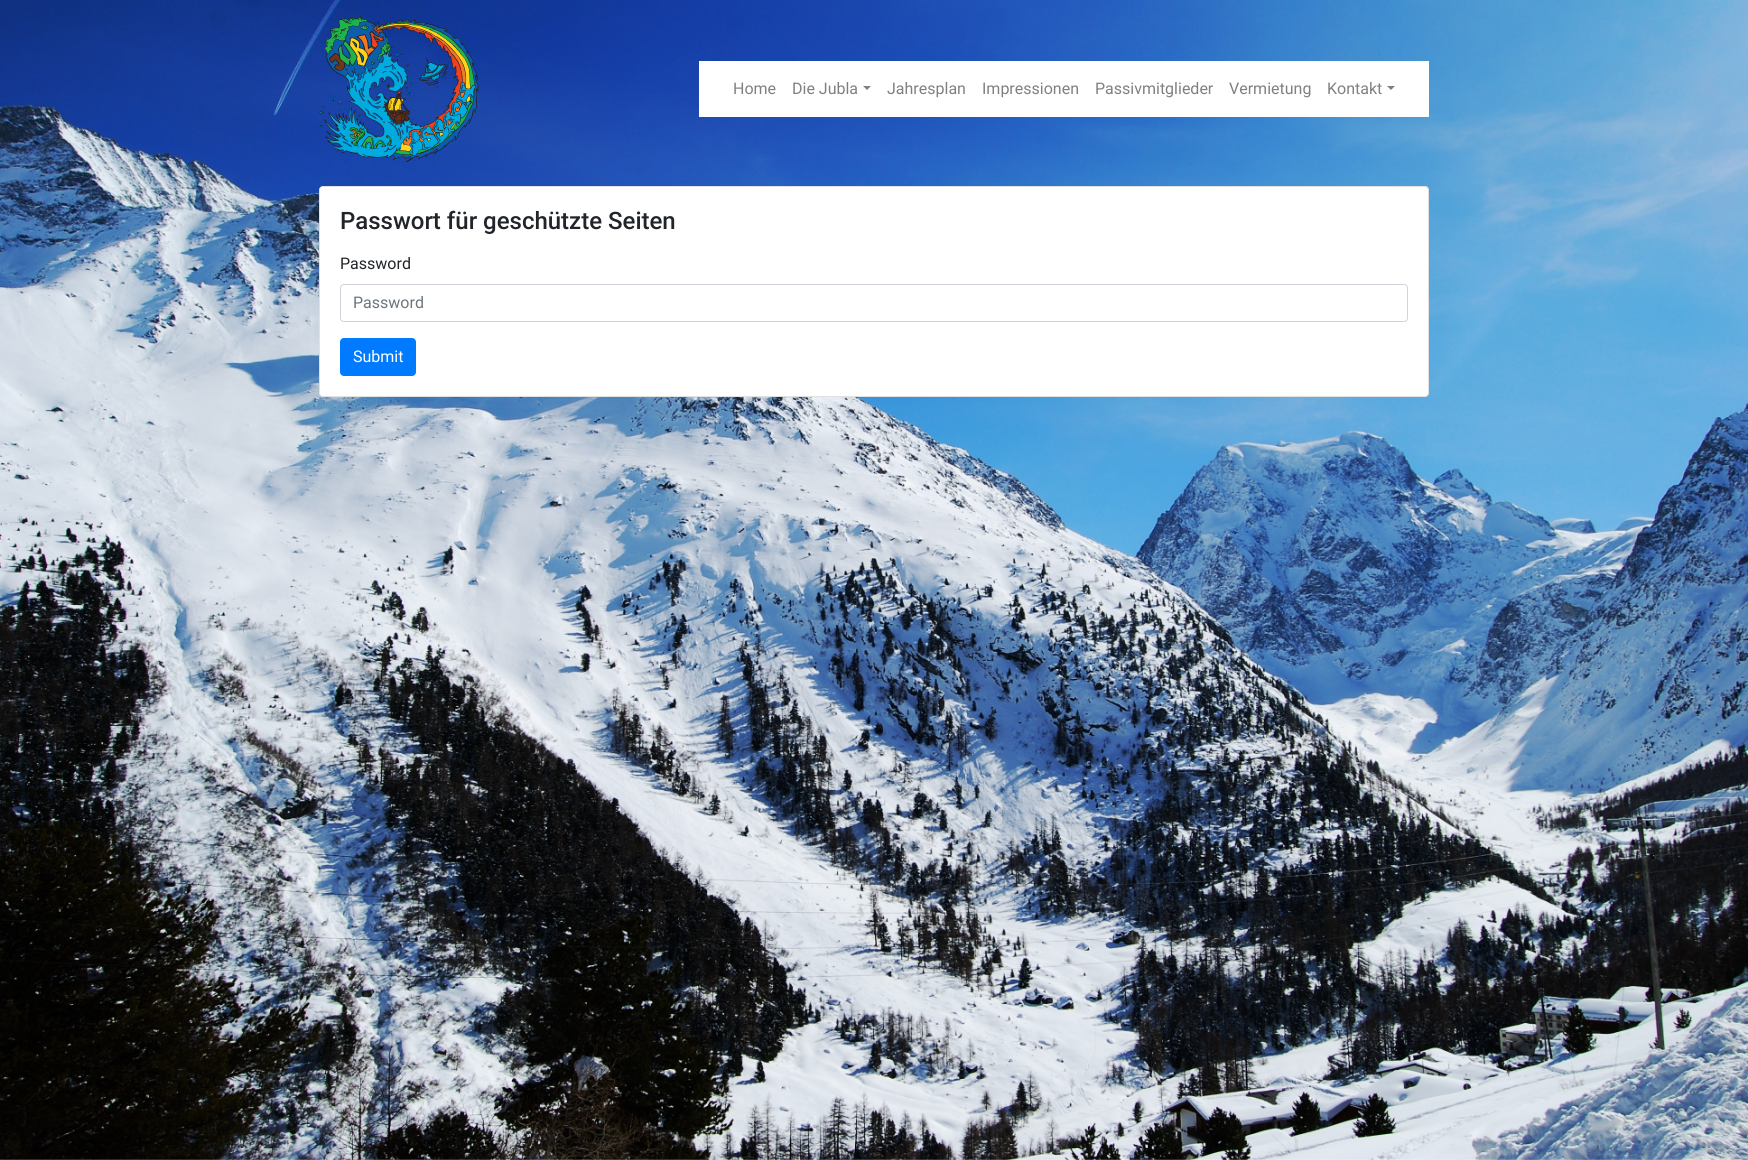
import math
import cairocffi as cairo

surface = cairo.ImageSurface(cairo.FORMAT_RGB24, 1748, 1160)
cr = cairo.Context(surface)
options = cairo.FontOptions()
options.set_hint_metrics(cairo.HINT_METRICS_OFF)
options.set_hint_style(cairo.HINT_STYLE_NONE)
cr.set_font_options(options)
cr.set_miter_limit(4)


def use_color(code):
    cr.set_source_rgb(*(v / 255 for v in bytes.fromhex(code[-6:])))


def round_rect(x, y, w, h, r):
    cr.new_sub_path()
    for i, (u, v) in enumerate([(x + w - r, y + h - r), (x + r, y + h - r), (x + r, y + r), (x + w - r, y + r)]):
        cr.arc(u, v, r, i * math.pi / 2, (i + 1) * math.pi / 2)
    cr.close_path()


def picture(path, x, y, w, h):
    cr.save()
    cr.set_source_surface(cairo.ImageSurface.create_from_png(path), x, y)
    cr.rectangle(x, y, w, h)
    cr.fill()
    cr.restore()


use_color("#ffffff")
cr.paint()
picture("img1.png", 0, 0, 1748, 1160)
picture("img2.png", 319, 16, 160, 146)
use_color("#ffffff")
cr.rectangle(699, 61, 730, 56)
cr.fill()
cr.select_font_face("Roboto")
cr.set_font_size(16)
use_color("#808080")
cr.move_to(733, 94)
cr.show_text("Home")
cr.move_to(792, 94)
cr.show_text("Die Jubla")
cr.new_path()
cr.move_to(863, 86)
cr.line_to(871, 86)
cr.line_to(867, 90)
cr.close_path()
cr.fill()
cr.move_to(887, 94)
cr.show_text("Jahresplan")
cr.move_to(982, 94)
cr.show_text("Impressionen")
cr.move_to(1095, 94)
cr.show_text("Passivmitglieder")
cr.move_to(1229, 94)
cr.show_text("Vermietung")
cr.move_to(1327, 94)
cr.show_text("Kontakt")
cr.new_path()
cr.move_to(1387, 86)
cr.line_to(1395, 86)
cr.line_to(1391, 90)
cr.close_path()
cr.fill()
use_color("#ffffff")
round_rect(319, 186, 1110, 211, 4)
cr.fill()
round_rect(319.5, 186.5, 1109, 210, 3.5)
cr.set_source_rgba(0, 0, 0, 0.12)
cr.set_line_width(1)
cr.stroke()
cr.select_font_face("Roboto Medium")
cr.set_font_size(24)
use_color("#212529")
cr.move_to(340, 229)
cr.show_text("Passwort für geschützte Seiten")
cr.select_font_face("Roboto")
cr.set_font_size(16)
cr.move_to(340, 269)
cr.show_text("Password")
round_rect(340.5, 284.5, 1067, 37, 3.5)
use_color("#ced4da")
cr.stroke()
use_color("#6c757d")
cr.move_to(353, 308)
cr.show_text("Password")
use_color("#007bff")
round_rect(340.5, 338.5, 75, 37, 3.5)
cr.fill_preserve()
cr.stroke()
use_color("#ffffff")
cr.move_to(353, 362)
cr.show_text("Submit")
surface.write_to_png("result.png")
